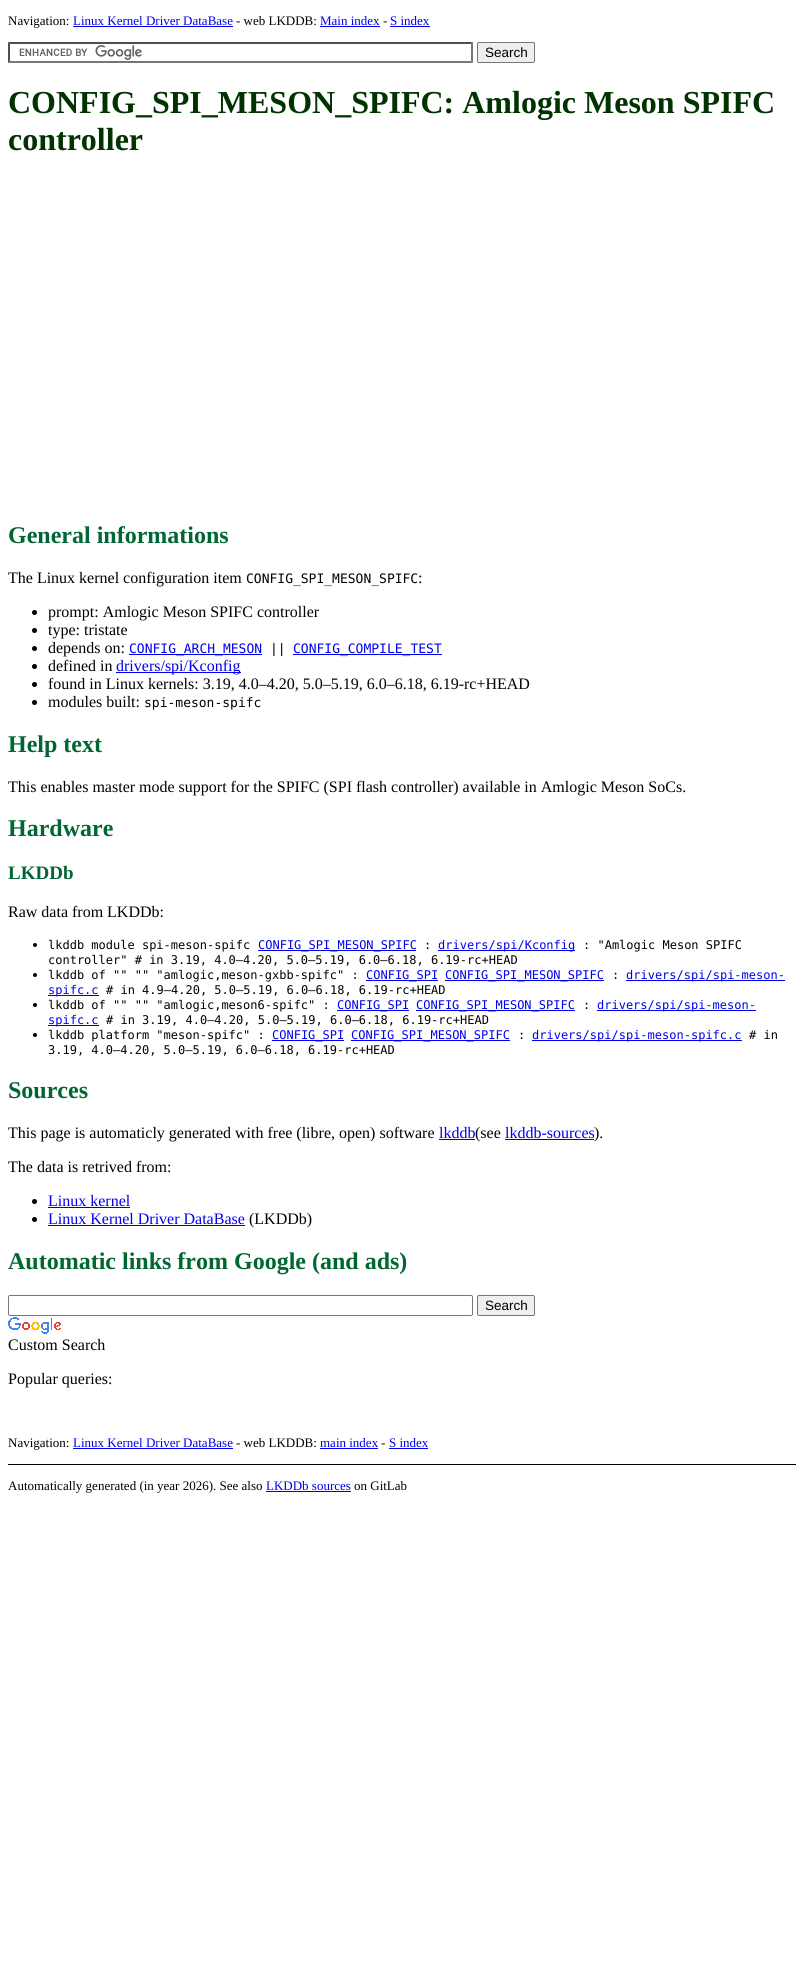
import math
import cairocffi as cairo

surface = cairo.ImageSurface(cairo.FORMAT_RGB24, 804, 1986)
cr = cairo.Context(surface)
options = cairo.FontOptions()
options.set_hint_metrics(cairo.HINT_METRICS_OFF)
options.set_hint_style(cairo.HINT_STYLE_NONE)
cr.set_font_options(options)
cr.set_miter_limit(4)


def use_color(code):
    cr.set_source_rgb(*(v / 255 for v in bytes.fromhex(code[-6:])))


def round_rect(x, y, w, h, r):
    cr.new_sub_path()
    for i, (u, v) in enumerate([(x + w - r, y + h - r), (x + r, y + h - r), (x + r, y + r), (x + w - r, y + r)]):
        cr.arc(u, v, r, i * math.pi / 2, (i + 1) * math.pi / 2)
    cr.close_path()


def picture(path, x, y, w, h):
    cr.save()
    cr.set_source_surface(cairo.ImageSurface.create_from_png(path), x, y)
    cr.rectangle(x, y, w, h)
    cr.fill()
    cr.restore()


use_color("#ffffff")
cr.paint()
cr.select_font_face("Liberation Serif")
cr.set_font_size(13)
use_color("#000000")
cr.move_to(8, 25)
cr.show_text("Navigation:")
use_color("#0000ee")
cr.move_to(73, 25)
cr.show_text("Linux Kernel Driver DataBase")
cr.rectangle(73, 26, 160, 1)
cr.fill()
use_color("#000000")
cr.move_to(236, 25)
cr.show_text("- web LKDDB:")
use_color("#0000ee")
cr.move_to(320, 25)
cr.show_text("Main index")
cr.rectangle(320, 26, 60, 1)
cr.fill()
use_color("#000000")
cr.move_to(383, 25)
cr.show_text("-")
use_color("#0000ee")
cr.move_to(390, 25)
cr.show_text("S index")
cr.rectangle(390, 26, 40, 1)
cr.fill()
picture("img1.png", 19, 45, 123, 15)
use_color("#4f4f4f")
cr.new_path()
cr.move_to(8, 42)
cr.line_to(473, 42)
cr.line_to(471, 44)
cr.line_to(10, 44)
cr.close_path()
cr.fill()
use_color("#767676")
cr.new_path()
cr.move_to(473, 42)
cr.line_to(473, 63)
cr.line_to(471, 61)
cr.line_to(471, 44)
cr.close_path()
cr.fill()
cr.new_path()
cr.move_to(473, 63)
cr.line_to(8, 63)
cr.line_to(10, 61)
cr.line_to(471, 61)
cr.close_path()
cr.fill()
use_color("#4f4f4f")
cr.new_path()
cr.move_to(8, 63)
cr.line_to(8, 42)
cr.line_to(10, 44)
cr.line_to(10, 61)
cr.close_path()
cr.fill()
use_color("#efefef")
round_rect(477.5, 42.5, 57, 20, 1.5)
cr.fill_preserve()
use_color("#767676")
cr.set_line_width(1)
cr.stroke()
cr.select_font_face("Liberation Sans")
cr.set_font_size(13.5)
use_color("#000000")
cr.move_to(485, 57)
cr.show_text("Search")
cr.select_font_face("Liberation Serif", cairo.FONT_SLANT_NORMAL, cairo.FONT_WEIGHT_BOLD)
cr.set_font_size(32)
use_color("#003300")
cr.move_to(8, 113)
cr.show_text("CONFIG_SPI_MESON_SPIFC: Amlogic Meson SPIFC")
cr.move_to(8, 150)
cr.show_text("controller")
cr.set_font_size(24)
use_color("#006633")
cr.move_to(8, 543)
cr.show_text("General informations")
cr.select_font_face("Liberation Serif")
cr.set_font_size(16)
use_color("#000000")
cr.move_to(8, 583)
cr.show_text("The Linux kernel configuration item")
cr.select_font_face("DejaVu Sans Mono")
cr.set_font_size(13)
cr.move_to(246, 583)
cr.show_text("CONFIG_SPI_MESON_SPIFC")
cr.select_font_face("Liberation Serif")
cr.set_font_size(16)
cr.move_to(418, 583)
cr.show_text(":")
cr.new_path()
cr.arc(34.5, 612.5, 2.5, 0, 2 * math.pi)
cr.fill()
cr.move_to(48, 617)
cr.show_text("prompt: Amlogic Meson SPIFC controller")
cr.new_path()
cr.arc(34.5, 630.5, 2.5, 0, 2 * math.pi)
cr.fill()
cr.move_to(48, 635)
cr.show_text("type: tristate")
cr.new_path()
cr.arc(34.5, 648.5, 2.5, 0, 2 * math.pi)
cr.fill()
cr.move_to(48, 653)
cr.show_text("depends on:")
use_color("#0000ee")
cr.rectangle(129, 654, 133, 1)
cr.fill()
cr.select_font_face("DejaVu Sans Mono")
cr.set_font_size(13)
cr.move_to(129, 653)
cr.show_text("CONFIG_ARCH_MESON")
use_color("#000000")
cr.move_to(270, 653)
cr.show_text("||")
use_color("#0000ee")
cr.rectangle(293, 654, 149, 1)
cr.fill()
cr.move_to(293, 653)
cr.show_text("CONFIG_COMPILE_TEST")
use_color("#000000")
cr.new_path()
cr.arc(34.5, 666.5, 2.5, 0, 2 * math.pi)
cr.fill()
cr.select_font_face("Liberation Serif")
cr.set_font_size(16)
cr.move_to(48, 671)
cr.show_text("defined in")
use_color("#0000ee")
cr.rectangle(116, 672, 125, 1)
cr.fill()
cr.move_to(116, 671)
cr.show_text("drivers/spi/Kconfig")
use_color("#000000")
cr.new_path()
cr.arc(34.5, 684.5, 2.5, 0, 2 * math.pi)
cr.fill()
cr.move_to(48, 689)
cr.show_text("found in Linux kernels: 3.19, 4.0–4.20, 5.0–5.19, 6.0–6.18, 6.19-rc+HEAD")
cr.new_path()
cr.arc(34.5, 702.5, 2.5, 0, 2 * math.pi)
cr.fill()
cr.move_to(48, 707)
cr.show_text("modules built:")
cr.select_font_face("DejaVu Sans Mono")
cr.set_font_size(13)
cr.move_to(144, 707)
cr.show_text("spi-meson-spifc")
cr.select_font_face("Liberation Serif", cairo.FONT_SLANT_NORMAL, cairo.FONT_WEIGHT_BOLD)
cr.set_font_size(24)
use_color("#006633")
cr.move_to(8, 752)
cr.show_text("Help text")
cr.select_font_face("Liberation Serif")
cr.set_font_size(16)
use_color("#000000")
cr.move_to(8, 792)
cr.show_text("This enables master mode support for the SPIFC (SPI flash controller) available in Amlogic Meson SoCs.")
cr.select_font_face("Liberation Serif", cairo.FONT_SLANT_NORMAL, cairo.FONT_WEIGHT_BOLD)
cr.set_font_size(24)
use_color("#006633")
cr.move_to(8, 836)
cr.show_text("Hardware")
cr.set_font_size(19)
cr.move_to(8, 879)
cr.show_text("LKDDb")
cr.select_font_face("Liberation Serif")
cr.set_font_size(16)
use_color("#000000")
cr.move_to(8, 917)
cr.show_text("Raw data from LKDDb:")
cr.new_path()
cr.arc(35, 945, 2, 0, 2 * math.pi)
cr.fill()
cr.select_font_face("DejaVu Sans Mono")
cr.set_font_size(12)
cr.move_to(48, 949)
cr.show_text("lkddb module spi-meson-spifc")
use_color("#0000ee")
cr.rectangle(258, 950, 158, 1)
cr.fill()
cr.move_to(258, 949)
cr.show_text("CONFIG_SPI_MESON_SPIFC")
use_color("#000000")
cr.move_to(424, 949)
cr.show_text(":")
use_color("#0000ee")
cr.rectangle(438, 950, 137, 1)
cr.fill()
cr.move_to(438, 949)
cr.show_text("drivers/spi/Kconfig")
use_color("#000000")
cr.move_to(583, 949)
cr.show_text(": \"Amlogic Meson SPIFC")
cr.move_to(48, 964)
cr.show_text("controller\" # in 3.19, 4.0–4.20, 5.0–5.19, 6.0–6.18, 6.19-rc+HEAD")
cr.new_path()
cr.arc(35, 975, 2, 0, 2 * math.pi)
cr.fill()
cr.move_to(48, 979)
cr.show_text("lkddb of \"\" \"\" \"amlogic,meson-gxbb-spifc\" :")
use_color("#0000ee")
cr.rectangle(366, 980, 72, 1)
cr.fill()
cr.move_to(366, 979)
cr.show_text("CONFIG_SPI")
cr.rectangle(445, 980, 159, 1)
cr.fill()
cr.move_to(445, 979)
cr.show_text("CONFIG_SPI_MESON_SPIFC")
use_color("#000000")
cr.move_to(612, 979)
cr.show_text(":")
use_color("#0000ee")
cr.rectangle(626, 980, 159, 1)
cr.fill()
cr.move_to(626, 979)
cr.show_text("drivers/spi/spi-meson-")
cr.rectangle(48, 995, 51, 1)
cr.fill()
cr.move_to(48, 994)
cr.show_text("spifc.c")
use_color("#000000")
cr.move_to(106, 994)
cr.show_text("# in 4.9–4.20, 5.0–5.19, 6.0–6.18, 6.19-rc+HEAD")
cr.new_path()
cr.arc(35, 1005, 2, 0, 2 * math.pi)
cr.fill()
cr.move_to(48, 1009)
cr.show_text("lkddb of \"\" \"\" \"amlogic,meson6-spifc\" :")
use_color("#0000ee")
cr.rectangle(337, 1010, 72, 1)
cr.fill()
cr.move_to(337, 1009)
cr.show_text("CONFIG_SPI")
cr.rectangle(416, 1010, 159, 1)
cr.fill()
cr.move_to(416, 1009)
cr.show_text("CONFIG_SPI_MESON_SPIFC")
use_color("#000000")
cr.move_to(583, 1009)
cr.show_text(":")
use_color("#0000ee")
cr.rectangle(597, 1010, 159, 1)
cr.fill()
cr.move_to(597, 1009)
cr.show_text("drivers/spi/spi-meson-")
cr.rectangle(48, 1025, 51, 1)
cr.fill()
cr.move_to(48, 1024)
cr.show_text("spifc.c")
use_color("#000000")
cr.move_to(106, 1024)
cr.show_text("# in 3.19, 4.0–4.20, 5.0–5.19, 6.0–6.18, 6.19-rc+HEAD")
cr.new_path()
cr.arc(35, 1035, 2, 0, 2 * math.pi)
cr.fill()
cr.move_to(48, 1039)
cr.show_text("lkddb platform \"meson-spifc\" :")
use_color("#0000ee")
cr.rectangle(272, 1040, 72, 1)
cr.fill()
cr.move_to(272, 1039)
cr.show_text("CONFIG_SPI")
cr.rectangle(351, 1040, 159, 1)
cr.fill()
cr.move_to(351, 1039)
cr.show_text("CONFIG_SPI_MESON_SPIFC")
use_color("#000000")
cr.move_to(518, 1039)
cr.show_text(":")
use_color("#0000ee")
cr.rectangle(532, 1040, 210, 1)
cr.fill()
cr.move_to(532, 1039)
cr.show_text("drivers/spi/spi-meson-spifc.c")
use_color("#000000")
cr.move_to(749, 1039)
cr.show_text("# in")
cr.move_to(48, 1054)
cr.show_text("3.19, 4.0–4.20, 5.0–5.19, 6.0–6.18, 6.19-rc+HEAD")
cr.select_font_face("Liberation Serif", cairo.FONT_SLANT_NORMAL, cairo.FONT_WEIGHT_BOLD)
cr.set_font_size(24)
use_color("#006633")
cr.move_to(8, 1098)
cr.show_text("Sources")
cr.select_font_face("Liberation Serif")
cr.set_font_size(16)
use_color("#000000")
cr.move_to(8, 1138)
cr.show_text("This page is automaticly generated with free (libre, open) software")
use_color("#0000ee")
cr.move_to(439, 1138)
cr.show_text("lkddb")
cr.rectangle(439, 1139, 36, 1)
cr.fill()
use_color("#000000")
cr.move_to(475, 1138)
cr.show_text("(see")
use_color("#0000ee")
cr.move_to(505, 1138)
cr.show_text("lkddb-sources")
cr.rectangle(505, 1139, 89, 1)
cr.fill()
use_color("#000000")
cr.move_to(594, 1138)
cr.show_text(").")
cr.move_to(8, 1172)
cr.show_text("The data is retrived from:")
cr.new_path()
cr.arc(34.5, 1201.5, 2.5, 0, 2 * math.pi)
cr.fill()
use_color("#0000ee")
cr.move_to(48, 1206)
cr.show_text("Linux kernel")
cr.rectangle(48, 1207, 82, 1)
cr.fill()
use_color("#000000")
cr.arc(34.5, 1219.5, 2.5, 0, 2 * math.pi)
cr.fill()
use_color("#0000ee")
cr.move_to(48, 1224)
cr.show_text("Linux Kernel Driver DataBase")
cr.rectangle(48, 1225, 197, 1)
cr.fill()
use_color("#000000")
cr.move_to(249, 1224)
cr.show_text("(LKDDb)")
cr.select_font_face("Liberation Serif", cairo.FONT_SLANT_NORMAL, cairo.FONT_WEIGHT_BOLD)
cr.set_font_size(24)
use_color("#006633")
cr.move_to(8, 1269)
cr.show_text("Automatic links from Google (and ads)")
round_rect(8.5, 1295.5, 464, 20, 1.5)
use_color("#767676")
cr.stroke()
use_color("#efefef")
round_rect(477.5, 1295.5, 57, 20, 1.5)
cr.fill_preserve()
use_color("#767676")
cr.stroke()
cr.select_font_face("Liberation Sans")
cr.set_font_size(13.5)
use_color("#000000")
cr.move_to(485, 1310)
cr.show_text("Search")
picture("img2.png", 8, 1317, 53, 17)
cr.select_font_face("Liberation Serif")
cr.set_font_size(16)
cr.move_to(8, 1350)
cr.show_text("Custom Search")
cr.move_to(8, 1384)
cr.show_text("Popular queries:")
cr.set_font_size(13)
cr.move_to(8, 1447)
cr.show_text("Navigation:")
use_color("#0000ee")
cr.move_to(73, 1447)
cr.show_text("Linux Kernel Driver DataBase")
cr.rectangle(73, 1448, 160, 1)
cr.fill()
use_color("#000000")
cr.move_to(236, 1447)
cr.show_text("- web LKDDB:")
use_color("#0000ee")
cr.move_to(320, 1447)
cr.show_text("main index")
cr.rectangle(320, 1448, 58, 1)
cr.fill()
use_color("#000000")
cr.move_to(381, 1447)
cr.show_text("-")
use_color("#0000ee")
cr.move_to(389, 1447)
cr.show_text("S index")
cr.rectangle(389, 1448, 39, 1)
cr.fill()
use_color("#000000")
cr.rectangle(8, 1464, 788, 1)
cr.fill()
cr.move_to(8, 1490)
cr.show_text("Automatically generated (in year 2026). See also")
use_color("#0000ee")
cr.move_to(266, 1490)
cr.show_text("LKDDb sources")
cr.rectangle(266, 1491, 85, 1)
cr.fill()
use_color("#000000")
cr.move_to(354, 1490)
cr.show_text("on GitLab")
surface.write_to_png("result.png")
